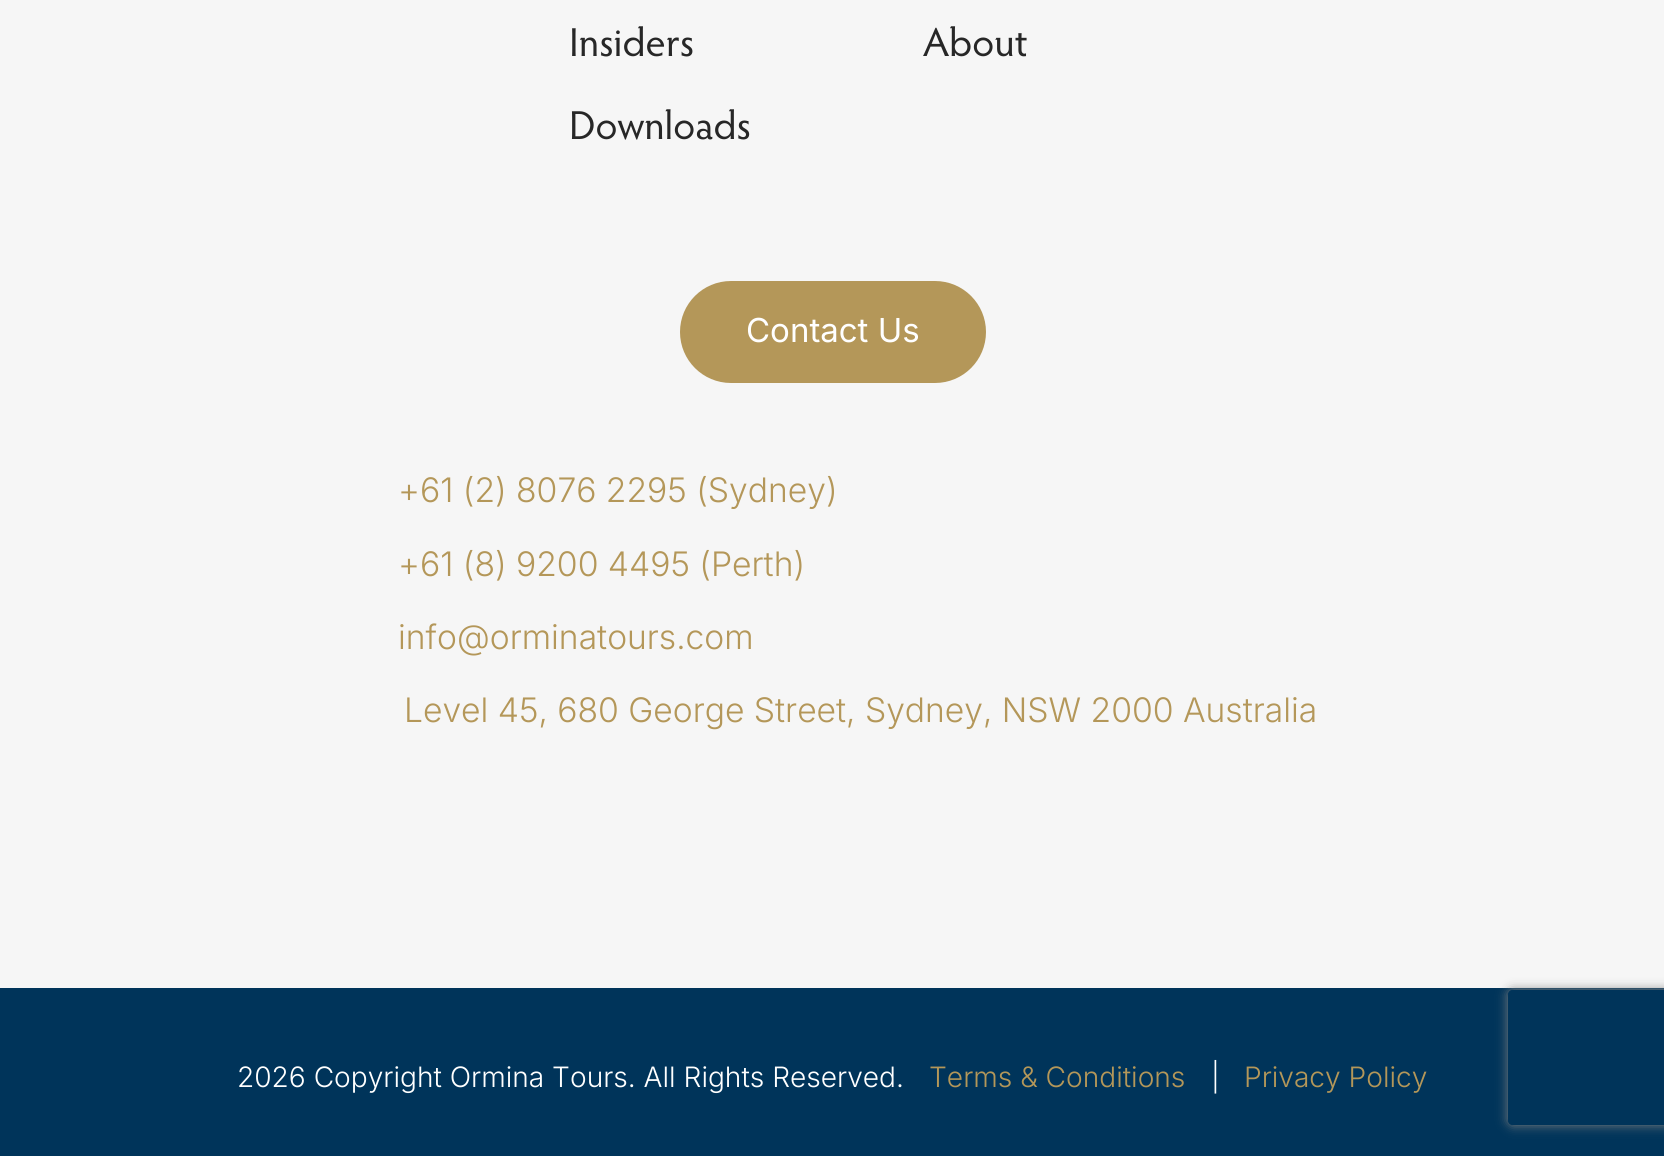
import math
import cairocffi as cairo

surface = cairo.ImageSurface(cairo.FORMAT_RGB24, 1664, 1156)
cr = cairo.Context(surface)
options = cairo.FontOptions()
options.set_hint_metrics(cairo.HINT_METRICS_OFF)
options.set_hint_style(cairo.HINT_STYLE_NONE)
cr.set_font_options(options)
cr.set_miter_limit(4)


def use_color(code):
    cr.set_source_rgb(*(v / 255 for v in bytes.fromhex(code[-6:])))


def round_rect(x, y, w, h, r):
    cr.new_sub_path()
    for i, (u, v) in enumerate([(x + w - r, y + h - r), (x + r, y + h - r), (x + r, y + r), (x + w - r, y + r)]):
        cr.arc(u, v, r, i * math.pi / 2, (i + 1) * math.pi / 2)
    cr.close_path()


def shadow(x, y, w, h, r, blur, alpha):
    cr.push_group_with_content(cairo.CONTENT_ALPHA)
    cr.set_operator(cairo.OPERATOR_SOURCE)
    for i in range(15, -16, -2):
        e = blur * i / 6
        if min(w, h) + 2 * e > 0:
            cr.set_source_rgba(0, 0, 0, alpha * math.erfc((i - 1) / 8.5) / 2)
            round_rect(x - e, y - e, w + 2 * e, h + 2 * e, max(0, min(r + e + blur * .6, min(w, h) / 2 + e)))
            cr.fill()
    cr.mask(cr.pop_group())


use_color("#f6f6f6")
cr.paint()
cr.select_font_face("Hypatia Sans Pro")
cr.set_font_size(40.5)
use_color("#272727")
cr.move_to(569, 56)
cr.show_text("Insiders")
cr.move_to(923, 56)
cr.show_text("About")
cr.move_to(569, 139)
cr.show_text("Downloads")
use_color("#b49759")
round_rect(680, 281, 306, 102, 51)
cr.fill()
cr.select_font_face("Inter")
cr.set_font_size(33)
use_color("#ffffff")
cr.move_to(746, 342)
cr.show_text("Contact Us")
cr.select_font_face("Inter Light")
cr.set_font_size(33.75)
use_color("#b49759")
cr.move_to(398, 502)
cr.show_text("+61 (2) 8076 2295 (Sydney)")
cr.move_to(398, 576)
cr.show_text("+61 (8) 9200 4495 (Perth)")
cr.move_to(398, 649)
cr.show_text("info@orminatours.com")
cr.move_to(404, 722)
cr.show_text("Level 45, 680 George Street, Sydney, NSW 2000 Australia")
use_color("#00345a")
cr.rectangle(0, 988, 1664, 168)
cr.fill()
cr.select_font_face("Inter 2 Light")
cr.set_font_size(28.1)
use_color("#ffffff")
cr.move_to(237, 1087)
cr.show_text("2026 Copyright Ormina Tours. All Rights Reserved.")
use_color("#b49759")
cr.move_to(929, 1087)
cr.show_text("Terms & Conditions")
use_color("#ffffff")
cr.move_to(1211, 1087)
cr.show_text("|")
use_color("#b49759")
cr.move_to(1244, 1087)
cr.show_text("Privacy Policy")
cr.save()
cr.set_fill_rule(cairo.FILL_RULE_EVEN_ODD)
cr.new_path()
cr.move_to(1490, 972)
cr.line_to(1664, 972)
cr.line_to(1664, 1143)
cr.line_to(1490, 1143)
cr.close_path()
cr.move_to(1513, 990)
cr.line_to(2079, 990)
cr.curve_to(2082, 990, 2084, 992, 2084, 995)
cr.line_to(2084, 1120)
cr.curve_to(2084, 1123, 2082, 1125, 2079, 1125)
cr.line_to(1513, 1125)
cr.curve_to(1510, 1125, 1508, 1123, 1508, 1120)
cr.line_to(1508, 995)
cr.curve_to(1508, 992, 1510, 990, 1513, 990)
cr.close_path()
cr.clip()
use_color("#808080")
shadow(1508, 990, 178, 135, 5, 5.5, 1)
cr.restore()
surface.write_to_png("result.png")
